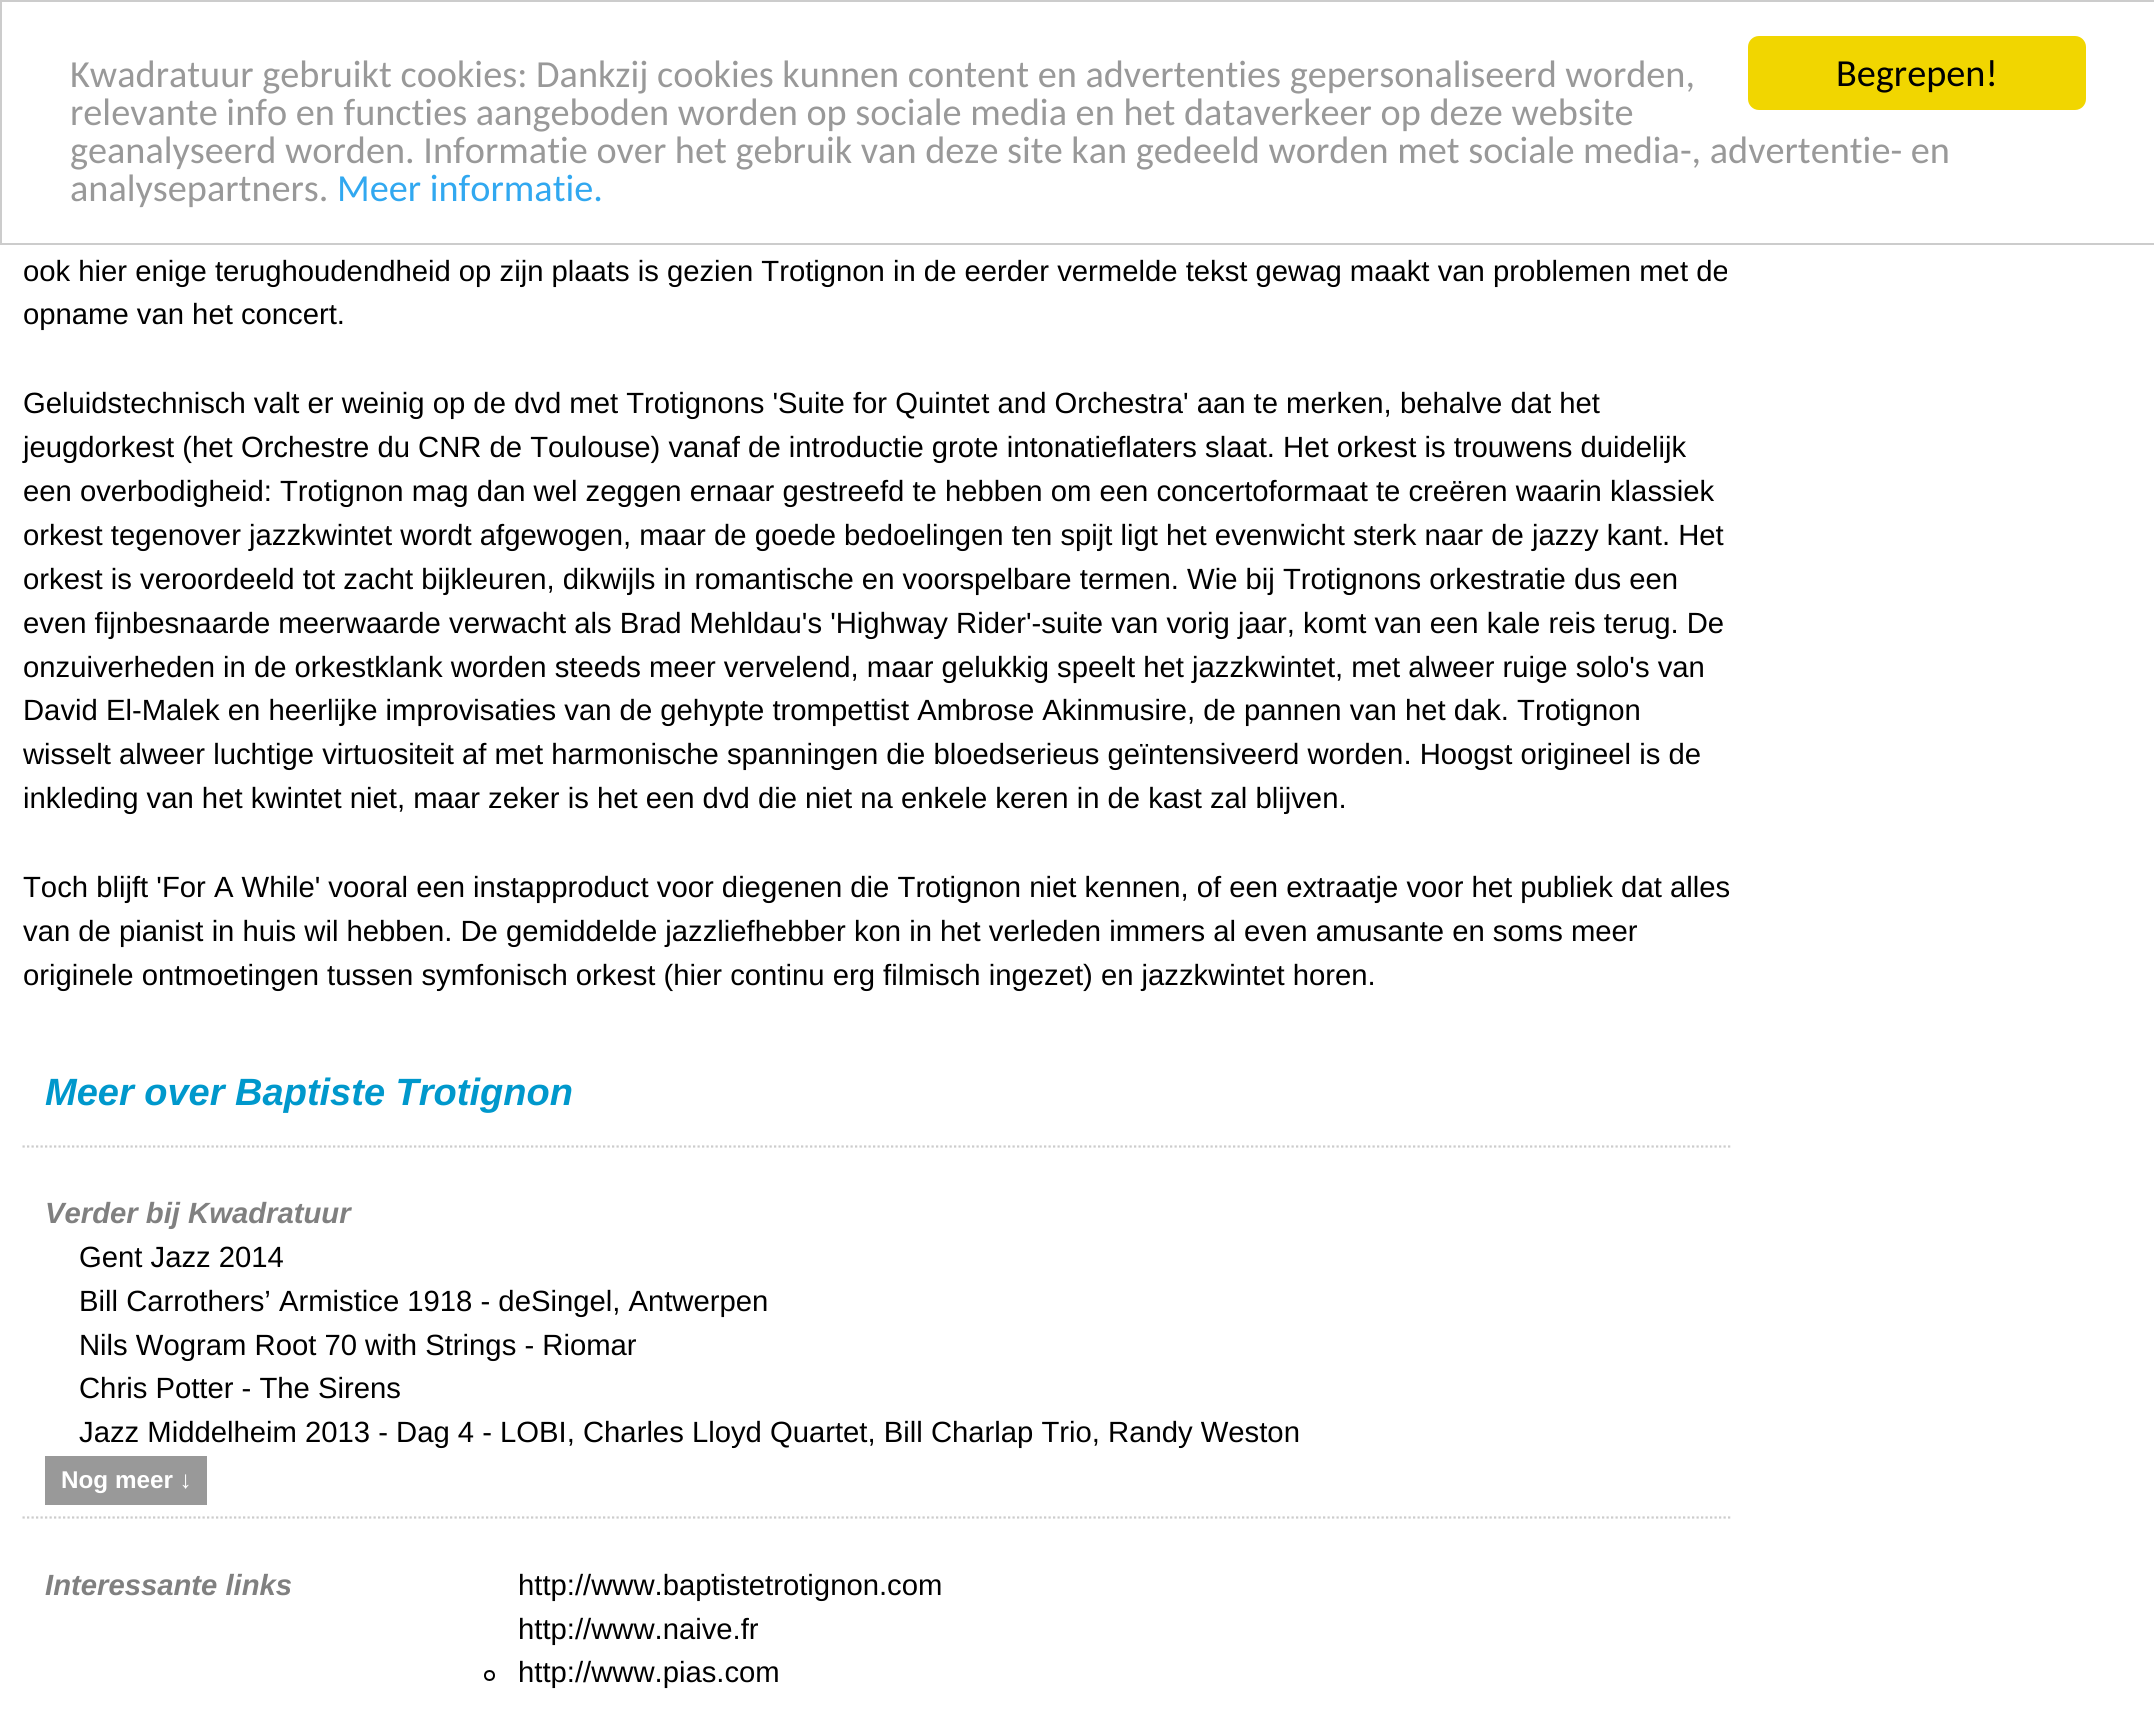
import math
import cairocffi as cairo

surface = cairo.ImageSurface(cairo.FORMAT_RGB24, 2154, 1731)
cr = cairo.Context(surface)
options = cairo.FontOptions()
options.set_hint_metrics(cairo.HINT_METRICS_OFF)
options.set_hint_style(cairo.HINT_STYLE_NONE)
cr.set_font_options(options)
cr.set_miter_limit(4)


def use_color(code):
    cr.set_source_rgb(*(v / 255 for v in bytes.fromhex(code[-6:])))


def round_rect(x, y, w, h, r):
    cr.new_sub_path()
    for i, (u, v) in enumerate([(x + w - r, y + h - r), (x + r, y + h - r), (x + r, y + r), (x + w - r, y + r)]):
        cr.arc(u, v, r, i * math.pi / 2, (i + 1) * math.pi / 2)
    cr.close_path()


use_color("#ffffff")
cr.paint()
cr.rectangle(1, 1, 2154, 243)
use_color("#cccccc")
cr.stroke()
cr.select_font_face("Carlito")
cr.set_font_size(38.25)
use_color("#999999")
cr.move_to(70, 87)
cr.show_text("Kwadratuur gebruikt cookies: Dankzij cookies kunnen content en advertenties gepersonaliseerd worden,")
cr.move_to(70, 125)
cr.show_text("relevante info en functies aangeboden worden op sociale media en het dataverkeer op deze website")
cr.move_to(70, 163)
cr.show_text("geanalyseerd worden. Informatie over het gebruik van deze site kan gedeeld worden met sociale media-, advertentie- en")
cr.move_to(70, 201)
cr.show_text("analysepartners.")
use_color("#31a8f0")
cr.move_to(337, 201)
cr.show_text("Meer informatie.")
use_color("#f1d600")
round_rect(1748, 36, 338, 74, 11)
cr.fill()
use_color("#000000")
cr.move_to(1836, 86)
cr.show_text("Begrepen!")
cr.select_font_face("Liberation Sans")
cr.set_font_size(29.25)
cr.move_to(23, 281)
cr.show_text("ook hier enige terughoudendheid op zijn plaats is gezien Trotignon in de eerder vermelde tekst gewag maakt van problemen met de")
cr.move_to(23, 324)
cr.show_text("opname van het concert.")
cr.move_to(23, 413)
cr.show_text("Geluidstechnisch valt er weinig op de dvd met Trotignons 'Suite for Quintet and Orchestra' aan te merken, behalve dat het")
cr.move_to(23, 457)
cr.show_text("jeugdorkest (het Orchestre du CNR de Toulouse) vanaf de introductie grote intonatieflaters slaat. Het orkest is trouwens duidelijk")
cr.move_to(23, 501)
cr.show_text("een overbodigheid: Trotignon mag dan wel zeggen ernaar gestreefd te hebben om een concertoformaat te creëren waarin klassiek")
cr.move_to(23, 545)
cr.show_text("orkest tegenover jazzkwintet wordt afgewogen, maar de goede bedoelingen ten spijt ligt het evenwicht sterk naar de jazzy kant. Het")
cr.move_to(23, 589)
cr.show_text("orkest is veroordeeld tot zacht bijkleuren, dikwijls in romantische en voorspelbare termen. Wie bij Trotignons orkestratie dus een")
cr.move_to(23, 633)
cr.show_text("even fijnbesnaarde meerwaarde verwacht als Brad Mehldau's 'Highway Rider'-suite van vorig jaar, komt van een kale reis terug. De")
cr.move_to(23, 677)
cr.show_text("onzuiverheden in de orkestklank worden steeds meer vervelend, maar gelukkig speelt het jazzkwintet, met alweer ruige solo's van")
cr.move_to(23, 720)
cr.show_text("David El-Malek en heerlijke improvisaties van de gehypte trompettist Ambrose Akinmusire, de pannen van het dak. Trotignon")
cr.move_to(23, 764)
cr.show_text("wisselt alweer luchtige virtuositeit af met harmonische spanningen die bloedserieus geïntensiveerd worden. Hoogst origineel is de")
cr.move_to(23, 808)
cr.show_text("inkleding van het kwintet niet, maar zeker is het een dvd die niet na enkele keren in de kast zal blijven.")
cr.move_to(23, 897)
cr.show_text("Toch blijft 'For A While' vooral een instapproduct voor diegenen die Trotignon niet kennen, of een extraatje voor het publiek dat alles")
cr.move_to(23, 941)
cr.show_text("van de pianist in huis wil hebben. De gemiddelde jazzliefhebber kon in het verleden immers al even amusante en soms meer")
cr.move_to(23, 985)
cr.show_text("originele ontmoetingen tussen symfonisch orkest (hier continu erg filmisch ingezet) en jazzkwintet horen.")
cr.select_font_face("Liberation Sans", cairo.FONT_SLANT_ITALIC, cairo.FONT_WEIGHT_BOLD)
cr.set_font_size(38)
use_color("#0098cc")
cr.move_to(45, 1105)
cr.show_text("Meer over Baptiste Trotignon")
cr.new_path()
cr.move_to(22.5, 1146.5)
cr.line_to(1732.5, 1146.5)
use_color("#cccccc")
cr.set_line_width(2.2)
cr.set_dash([2.25, 2.25])
cr.stroke()
cr.set_font_size(29.25)
use_color("#808080")
cr.move_to(45, 1223)
cr.show_text("Verder bij Kwadratuur")
cr.select_font_face("Liberation Sans")
use_color("#000000")
cr.move_to(79, 1267)
cr.show_text("Gent Jazz 2014")
cr.move_to(79, 1311)
cr.show_text("Bill Carrothers’ Armistice 1918 - deSingel, Antwerpen")
cr.move_to(79, 1355)
cr.show_text("Nils Wogram Root 70 with Strings - Riomar")
cr.move_to(79, 1398)
cr.show_text("Chris Potter - The Sirens")
cr.move_to(79, 1442)
cr.show_text("Jazz Middelheim 2013 - Dag 4 - LOBI, Charles Lloyd Quartet, Bill Charlap Trio, Randy Weston")
use_color("#999999")
cr.rectangle(45, 1456, 162, 49)
cr.fill()
cr.select_font_face("Liberation Sans", cairo.FONT_SLANT_NORMAL, cairo.FONT_WEIGHT_BOLD)
cr.set_font_size(24.25)
use_color("#ffffff")
cr.move_to(61, 1488)
cr.show_text("Nog meer ↓")
cr.new_path()
cr.move_to(22.5, 1517.5)
cr.line_to(1732.5, 1517.5)
use_color("#cccccc")
cr.stroke()
cr.select_font_face("Liberation Sans", cairo.FONT_SLANT_ITALIC, cairo.FONT_WEIGHT_BOLD)
cr.set_font_size(29.25)
use_color("#808080")
cr.move_to(45, 1595)
cr.show_text("Interessante links")
cr.select_font_face("Liberation Sans")
use_color("#000000")
cr.move_to(518, 1595)
cr.show_text("http://www.baptistetrotignon.com")
cr.move_to(518, 1639)
cr.show_text("http://www.naive.fr")
cr.new_path()
cr.arc(489.5, 1675.5, 4.5, 0, 2 * math.pi)
cr.set_line_width(2)
cr.set_dash([])
cr.stroke()
cr.move_to(518, 1682)
cr.show_text("http://www.pias.com")
surface.write_to_png("result.png")
